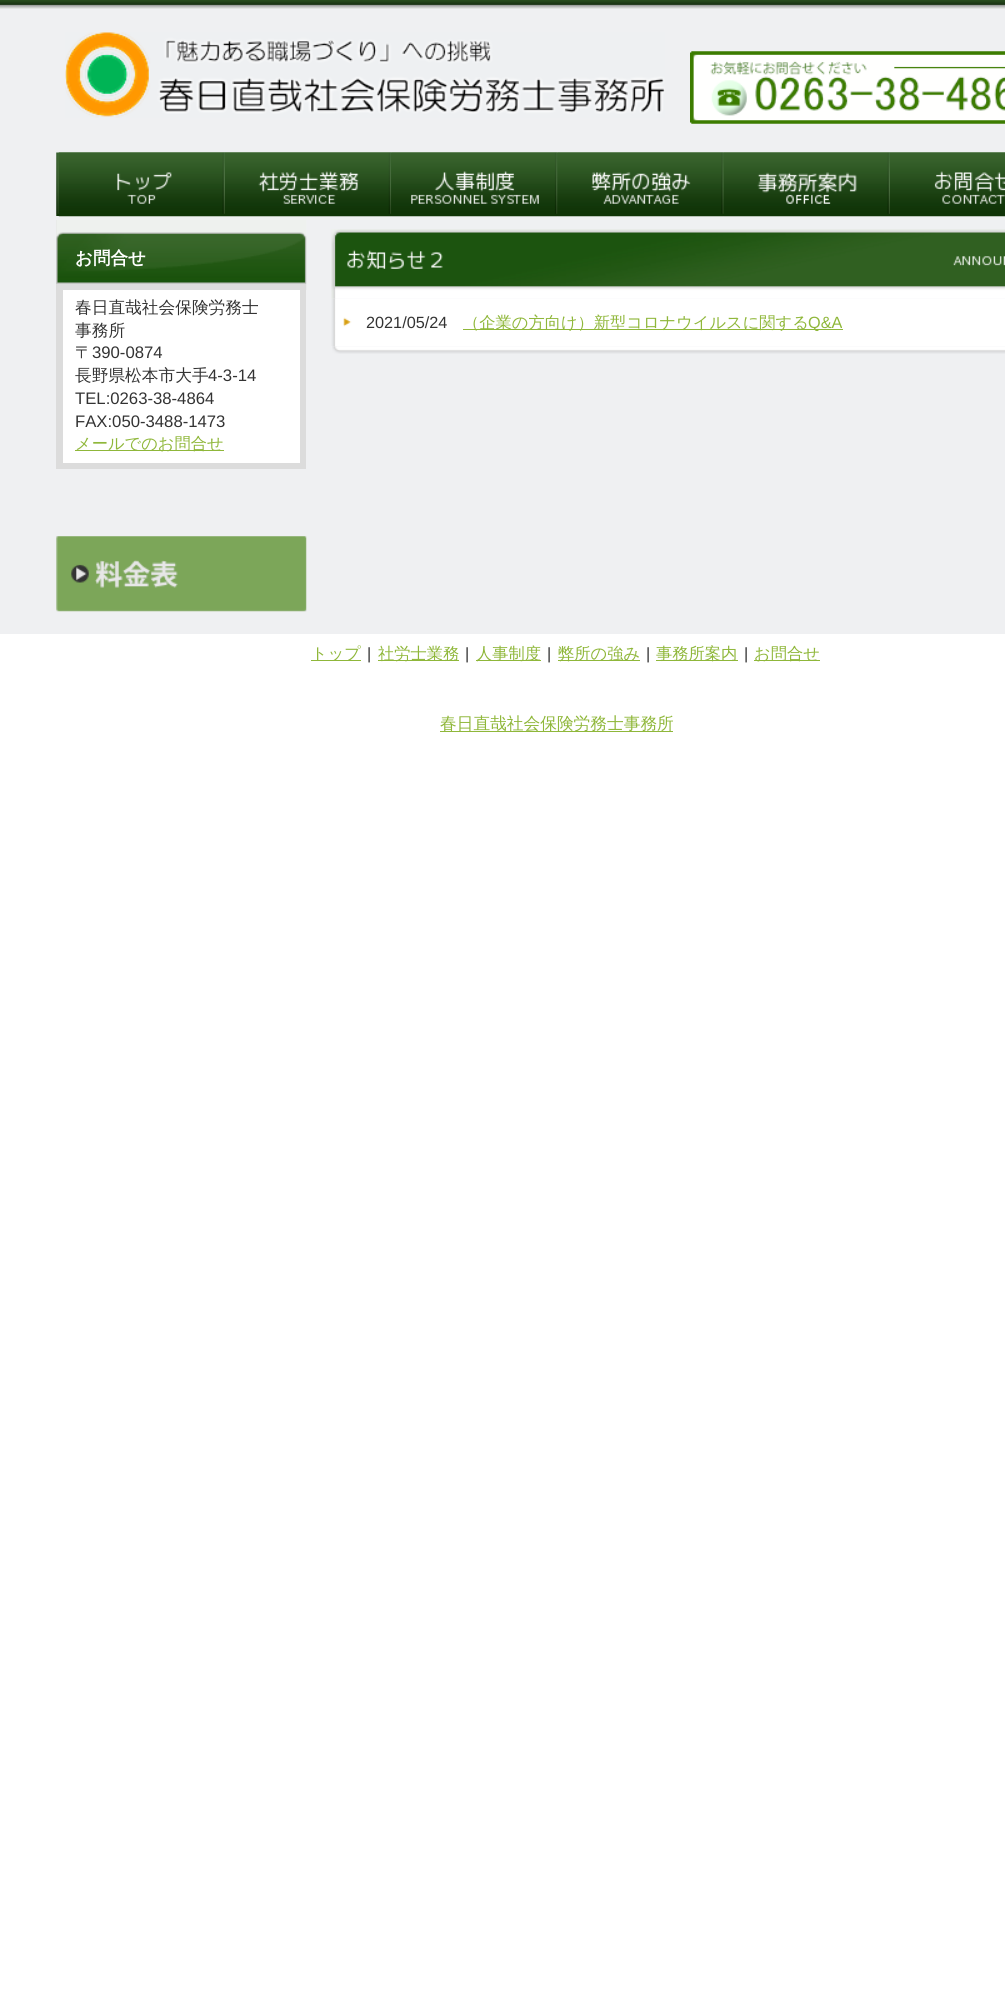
import math
import cairocffi as cairo

surface = cairo.ImageSurface(cairo.FORMAT_RGB24, 1005, 1995)
cr = cairo.Context(surface)
options = cairo.FontOptions()
options.set_hint_metrics(cairo.HINT_METRICS_OFF)
options.set_hint_style(cairo.HINT_STYLE_NONE)
cr.set_font_options(options)
cr.set_miter_limit(4)


def use_color(code):
    cr.set_source_rgb(*(v / 255 for v in bytes.fromhex(code[-6:])))


def picture(path, x, y, w, h):
    cr.save()
    cr.set_source_surface(cairo.ImageSurface.create_from_png(path), x, y)
    cr.rectangle(x, y, w, h)
    cr.fill()
    cr.restore()


use_color("#ffffff")
cr.paint()
use_color("#eff0f2")
cr.rectangle(0, 9, 1005, 625)
cr.fill()
picture("img1.png", 0, 0, 1005, 9)
picture("img2.png", 65, 32, 600, 86)
picture("img3.png", 690, 51, 315, 73)
picture("img4.png", 56, 152, 949, 64)
picture("img5.png", 58, 152, 167, 65)
picture("img6.png", 225, 152, 167, 65)
picture("img7.png", 391, 152, 167, 65)
picture("img8.png", 557, 152, 167, 65)
picture("img9.png", 723, 152, 167, 65)
picture("img10.png", 890, 152, 115, 65)
use_color("#dcdcdc")
cr.rectangle(56, 220, 250, 249)
cr.fill()
picture("img11.png", 56, 220, 251, 70)
cr.select_font_face("WenQuanYi Zen Hei", cairo.FONT_SLANT_NORMAL, cairo.FONT_WEIGHT_BOLD)
cr.set_font_size(17.5)
use_color("#ffffff")
cr.move_to(75, 264)
cr.show_text("お問合せ")
cr.rectangle(63, 290, 237, 173)
cr.fill()
cr.select_font_face("WenQuanYi Zen Hei Medium")
cr.set_font_size(16.7)
use_color("#333333")
cr.move_to(75, 313)
cr.show_text("春日直哉社会保険労務士")
cr.move_to(75, 336)
cr.show_text("事務所")
cr.move_to(75, 358)
cr.show_text("〒")
cr.select_font_face("Liberation Sans")
cr.move_to(92, 358)
cr.show_text("390-0874")
cr.select_font_face("WenQuanYi Zen Hei Medium")
cr.move_to(75, 381)
cr.show_text("長野県松本市大手")
cr.select_font_face("Liberation Sans")
cr.move_to(208, 381)
cr.show_text("4-3-14")
cr.move_to(75, 404)
cr.show_text("TEL:0263-38-4864")
cr.move_to(75, 427)
cr.show_text("FAX:050-3488-1473")
use_color("#8fb73a")
cr.rectangle(75, 450, 149, 1)
cr.fill()
cr.select_font_face("WenQuanYi Zen Hei Medium")
cr.set_font_size(16.25)
cr.move_to(75, 449)
cr.show_text("メールでのお問合せ")
picture("img12.png", 56, 536, 251, 76)
picture("img13.png", 332, 346, 673, 8)
picture("img15.png", 331, 298, 674, 48)
picture("img14.png", 331, 229, 674, 70)
picture("img16.png", 343, 317, 9, 10)
cr.select_font_face("Liberation Sans")
use_color("#333333")
cr.move_to(366, 328)
cr.show_text("2021/05/24")
use_color("#8fb73a")
cr.rectangle(463, 329, 380, 1)
cr.fill()
cr.select_font_face("WenQuanYi Zen Hei Medium")
cr.move_to(463, 328)
cr.show_text("（企業の方向け）新型コロナウイルスに関する")
cr.select_font_face("Liberation Sans")
cr.move_to(808, 328)
cr.show_text("Q&A")
cr.rectangle(311, 660, 50, 1)
cr.fill()
cr.select_font_face("WenQuanYi Zen Hei Medium")
cr.move_to(311, 659)
cr.show_text("トップ")
cr.select_font_face("Liberation Sans")
use_color("#333333")
cr.move_to(367, 659)
cr.show_text("|")
use_color("#8fb73a")
cr.rectangle(378, 660, 81, 1)
cr.fill()
cr.select_font_face("WenQuanYi Zen Hei Medium")
cr.move_to(378, 659)
cr.show_text("社労士業務")
cr.select_font_face("Liberation Sans")
use_color("#333333")
cr.move_to(465, 659)
cr.show_text("|")
use_color("#8fb73a")
cr.rectangle(476, 660, 65, 1)
cr.fill()
cr.select_font_face("WenQuanYi Zen Hei Medium")
cr.move_to(476, 659)
cr.show_text("人事制度")
cr.select_font_face("Liberation Sans")
use_color("#333333")
cr.move_to(547, 659)
cr.show_text("|")
use_color("#8fb73a")
cr.rectangle(558, 660, 82, 1)
cr.fill()
cr.select_font_face("WenQuanYi Zen Hei Medium")
cr.move_to(558, 659)
cr.show_text("弊所の強み")
cr.select_font_face("Liberation Sans")
use_color("#333333")
cr.move_to(646, 659)
cr.show_text("|")
use_color("#8fb73a")
cr.rectangle(656, 660, 82, 1)
cr.fill()
cr.select_font_face("WenQuanYi Zen Hei Medium")
cr.move_to(656, 659)
cr.show_text("事務所案内")
cr.select_font_face("Liberation Sans")
use_color("#333333")
cr.move_to(744, 659)
cr.show_text("|")
use_color("#8fb73a")
cr.rectangle(754, 660, 66, 1)
cr.fill()
cr.select_font_face("WenQuanYi Zen Hei Medium")
cr.move_to(754, 659)
cr.show_text("お問合せ")
cr.rectangle(440, 731, 233, 1)
cr.fill()
cr.set_font_size(16.7)
cr.move_to(440, 729)
cr.show_text("春日直哉社会保険労務士事務所")
surface.write_to_png("result.png")
